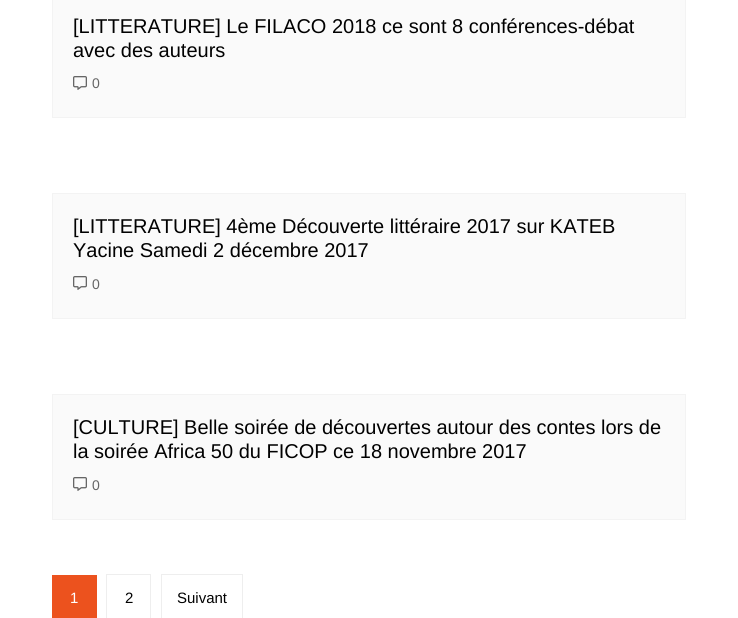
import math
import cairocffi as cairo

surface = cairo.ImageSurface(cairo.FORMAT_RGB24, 738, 618)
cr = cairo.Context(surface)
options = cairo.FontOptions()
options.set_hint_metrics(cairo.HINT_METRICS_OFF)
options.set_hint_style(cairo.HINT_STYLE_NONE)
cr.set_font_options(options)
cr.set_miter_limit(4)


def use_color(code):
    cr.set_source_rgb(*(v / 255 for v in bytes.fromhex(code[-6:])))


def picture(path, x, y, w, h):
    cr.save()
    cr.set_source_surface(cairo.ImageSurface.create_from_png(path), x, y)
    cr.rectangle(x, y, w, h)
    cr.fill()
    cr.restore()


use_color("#ffffff")
cr.paint()
use_color("#fafafa")
cr.rectangle(52.5, -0.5, 633, 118)
cr.fill_preserve()
use_color("#f3f3f3")
cr.set_line_width(1)
cr.stroke()
cr.select_font_face("Liberation Sans")
cr.set_font_size(20)
use_color("#010101")
cr.move_to(73, 33)
cr.show_text("[LITTERATURE] Le FILACO 2018 ce sont 8 conférences-débat")
cr.move_to(73, 57)
cr.show_text("avec des auteurs")
picture("img1.png", 73, 76, 14, 14)
cr.set_font_size(14)
use_color("#666666")
cr.move_to(92, 88)
cr.show_text("0")
use_color("#fafafa")
cr.rectangle(52.5, 193.5, 633, 125)
cr.fill_preserve()
use_color("#f3f3f3")
cr.stroke()
cr.set_font_size(20)
use_color("#010101")
cr.move_to(73, 233)
cr.show_text("[LITTERATURE] 4ème Découverte littéraire 2017 sur KATEB")
cr.move_to(73, 257)
cr.show_text("Yacine Samedi 2 décembre 2017")
picture("img1.png", 73, 276, 14, 14)
cr.set_font_size(14)
use_color("#666666")
cr.move_to(92, 289)
cr.show_text("0")
use_color("#fafafa")
cr.rectangle(52.5, 394.5, 633, 125)
cr.fill_preserve()
use_color("#f3f3f3")
cr.stroke()
cr.set_font_size(20)
use_color("#010101")
cr.move_to(73, 434)
cr.show_text("[CULTURE] Belle soirée de découvertes autour des contes lors de")
cr.move_to(73, 458)
cr.show_text("la soirée Africa 50 du FICOP ce 18 novembre 2017")
picture("img1.png", 73, 477, 14, 14)
cr.set_font_size(14)
use_color("#666666")
cr.move_to(92, 490)
cr.show_text("0")
use_color("#ec521e")
cr.rectangle(52, 575, 45, 43)
cr.fill()
cr.set_font_size(15)
use_color("#ffffff")
cr.move_to(70, 603)
cr.show_text("1")
cr.rectangle(106.5, 574.5, 44, 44)
use_color("#eeeeee")
cr.stroke()
use_color("#010101")
cr.move_to(125, 603)
cr.show_text("2")
cr.rectangle(161.5, 574.5, 81, 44)
use_color("#eeeeee")
cr.stroke()
use_color("#010101")
cr.move_to(177, 603)
cr.show_text("Suivant")
surface.write_to_png("result.png")
